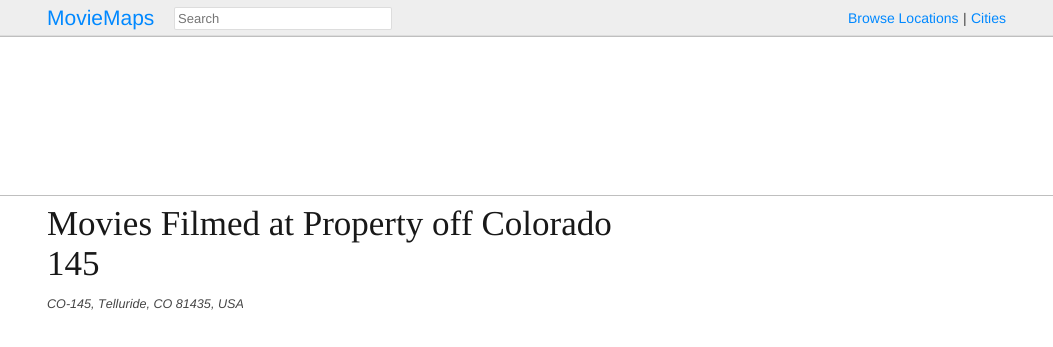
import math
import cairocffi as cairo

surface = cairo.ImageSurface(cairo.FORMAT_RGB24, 1053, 347)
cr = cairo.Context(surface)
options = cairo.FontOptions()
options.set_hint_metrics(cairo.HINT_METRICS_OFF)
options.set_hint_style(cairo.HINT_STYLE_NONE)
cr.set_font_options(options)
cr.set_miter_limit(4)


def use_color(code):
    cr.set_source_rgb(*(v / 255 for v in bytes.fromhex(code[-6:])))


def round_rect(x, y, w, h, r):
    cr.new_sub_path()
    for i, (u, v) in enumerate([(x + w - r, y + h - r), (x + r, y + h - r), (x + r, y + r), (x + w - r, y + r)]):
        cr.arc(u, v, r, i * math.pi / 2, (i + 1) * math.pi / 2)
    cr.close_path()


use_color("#ffffff")
cr.paint()
use_color("#eeeeee")
cr.rectangle(0, 0, 1053, 35)
cr.fill()
use_color("#dddddd")
cr.rectangle(0, 35, 1053, 1)
cr.fill()
cr.select_font_face("Liberation Sans")
cr.set_font_size(21)
use_color("#0088ff")
cr.move_to(47, 25)
cr.show_text("MovieMaps")
use_color("#ffffff")
round_rect(174.5, 7.5, 217, 22, 1.5)
cr.fill_preserve()
use_color("#dddddd")
cr.set_line_width(1)
cr.stroke()
cr.set_font_size(13)
use_color("#757575")
cr.move_to(178, 23)
cr.show_text("Search")
cr.set_font_size(14)
use_color("#0088ff")
cr.move_to(848, 23)
cr.show_text("Browse Locations")
use_color("#444444")
cr.move_to(963, 23)
cr.show_text("|")
use_color("#0088ff")
cr.move_to(971, 23)
cr.show_text("Cities")
use_color("#bfbfbf")
cr.rectangle(0, 36, 1053, 1)
cr.fill()
cr.rectangle(0, 195, 1053, 1)
cr.fill()
cr.select_font_face("Liberation Serif")
cr.set_font_size(35)
use_color("#181818")
cr.move_to(47, 235)
cr.show_text("Movies Filmed at Property off Colorado")
cr.move_to(47, 275)
cr.show_text("145")
cr.select_font_face("Liberation Sans", cairo.FONT_SLANT_ITALIC)
cr.set_font_size(12.6)
use_color("#444444")
cr.move_to(47, 308)
cr.show_text("CO-145, Telluride, CO 81435, USA")
surface.write_to_png("result.png")
